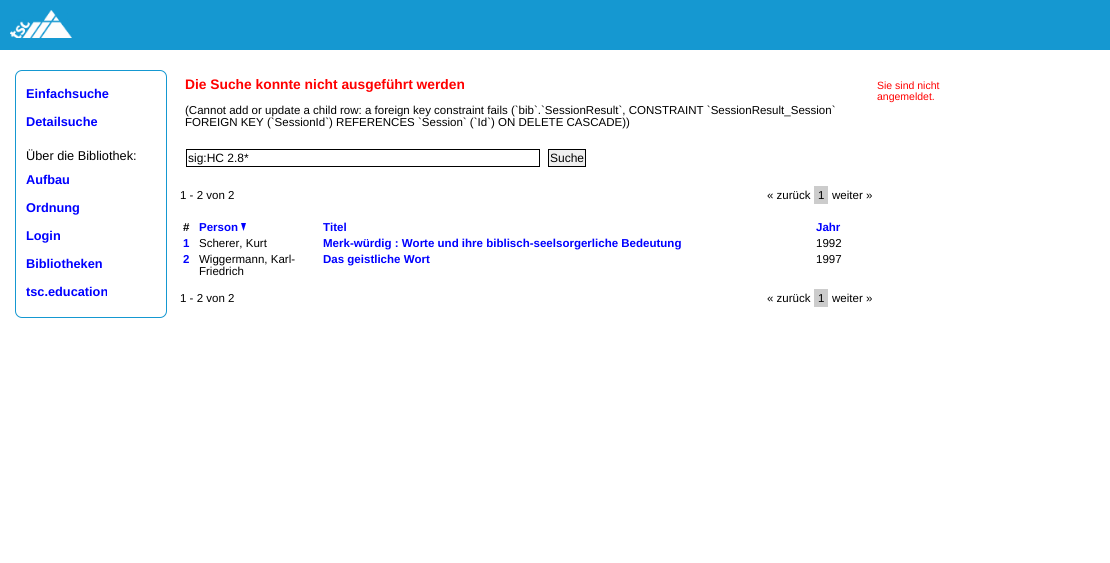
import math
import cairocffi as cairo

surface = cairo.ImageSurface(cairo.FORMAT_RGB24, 1110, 563)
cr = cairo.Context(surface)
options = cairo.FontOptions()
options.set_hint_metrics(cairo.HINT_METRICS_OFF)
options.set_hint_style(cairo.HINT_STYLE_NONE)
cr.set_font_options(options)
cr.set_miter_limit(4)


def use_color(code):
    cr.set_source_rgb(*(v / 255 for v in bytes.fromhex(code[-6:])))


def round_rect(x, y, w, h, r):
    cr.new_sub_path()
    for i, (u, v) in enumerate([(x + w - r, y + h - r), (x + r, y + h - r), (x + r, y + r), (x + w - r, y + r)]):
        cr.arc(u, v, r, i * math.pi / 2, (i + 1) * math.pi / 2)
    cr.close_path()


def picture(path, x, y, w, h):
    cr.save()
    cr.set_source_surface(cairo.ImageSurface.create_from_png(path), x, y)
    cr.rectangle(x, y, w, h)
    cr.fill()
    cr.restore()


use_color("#ffffff")
cr.paint()
use_color("#1598d1")
cr.rectangle(0, 0, 1110, 50)
cr.fill()
picture("img1.png", 10, 10, 62, 28)
round_rect(15.5, 70.5, 151, 247, 6.5)
cr.set_line_width(1)
cr.stroke()
cr.select_font_face("Liberation Sans", cairo.FONT_SLANT_NORMAL, cairo.FONT_WEIGHT_BOLD)
cr.set_font_size(12.75)
use_color("#0000ff")
cr.move_to(26, 98)
cr.show_text("Einfachsuche")
cr.move_to(26, 126)
cr.show_text("Detailsuche")
cr.select_font_face("Liberation Sans")
use_color("#000000")
cr.move_to(26, 160)
cr.show_text("Über die Bibliothek:")
cr.select_font_face("Liberation Sans", cairo.FONT_SLANT_NORMAL, cairo.FONT_WEIGHT_BOLD)
use_color("#0000ff")
cr.move_to(26, 184)
cr.show_text("Aufbau")
cr.move_to(26, 212)
cr.show_text("Ordnung")
cr.move_to(26, 240)
cr.show_text("Login")
cr.move_to(26, 268)
cr.show_text("Bibliotheken")
cr.move_to(26, 296)
cr.show_text("tsc.education")
cr.set_font_size(13.8)
use_color("#ff0000")
cr.move_to(185, 89)
cr.show_text("Die Suche konnte nicht ausgeführt werden")
cr.select_font_face("Liberation Sans")
cr.set_font_size(11.52)
use_color("#000000")
cr.move_to(185, 114)
cr.show_text("(Cannot add or update a child row: a foreign key constraint fails (`bib`.`SessionResult`, CONSTRAINT `SessionResult_Session`")
cr.move_to(185, 126)
cr.show_text("FOREIGN KEY (`SessionId`) REFERENCES `Session` (`Id`) ON DELETE CASCADE))")
cr.rectangle(186.5, 149.5, 353, 17)
cr.stroke()
cr.set_font_size(12)
cr.move_to(188, 162)
cr.show_text("sig:HC 2.8*")
use_color("#efefef")
cr.rectangle(548.5, 149.5, 37, 17)
cr.fill_preserve()
use_color("#000000")
cr.stroke()
cr.move_to(550, 162)
cr.show_text("Suche")
cr.set_font_size(11.52)
cr.move_to(180, 199)
cr.show_text("1 - 2 von 2")
cr.move_to(767, 199)
cr.show_text("« zurück")
use_color("#cccccc")
cr.rectangle(814, 186, 14, 18)
cr.fill()
use_color("#000000")
cr.move_to(818, 199)
cr.show_text("1")
cr.move_to(832, 199)
cr.show_text("weiter »")
cr.select_font_face("Liberation Sans", cairo.FONT_SLANT_NORMAL, cairo.FONT_WEIGHT_BOLD)
cr.move_to(183, 231)
cr.show_text("#")
use_color("#0000ff")
cr.move_to(199, 231)
cr.show_text("Person")
picture("img2.png", 241, 223, 5, 8)
cr.move_to(323, 231)
cr.show_text("Titel")
cr.move_to(816, 231)
cr.show_text("Jahr")
cr.move_to(183, 247)
cr.show_text("1")
cr.select_font_face("Liberation Sans")
use_color("#000000")
cr.move_to(199, 247)
cr.show_text("Scherer, Kurt")
cr.select_font_face("Liberation Sans", cairo.FONT_SLANT_NORMAL, cairo.FONT_WEIGHT_BOLD)
use_color("#0000ff")
cr.move_to(323, 247)
cr.show_text("Merk-würdig : Worte und ihre biblisch-seelsorgerliche Bedeutung")
cr.select_font_face("Liberation Sans")
use_color("#000000")
cr.move_to(816, 247)
cr.show_text("1992")
cr.select_font_face("Liberation Sans", cairo.FONT_SLANT_NORMAL, cairo.FONT_WEIGHT_BOLD)
use_color("#0000ff")
cr.move_to(183, 263)
cr.show_text("2")
cr.select_font_face("Liberation Sans")
use_color("#000000")
cr.move_to(199, 263)
cr.show_text("Wiggermann, Karl-")
cr.move_to(199, 275)
cr.show_text("Friedrich")
cr.select_font_face("Liberation Sans", cairo.FONT_SLANT_NORMAL, cairo.FONT_WEIGHT_BOLD)
use_color("#0000ff")
cr.move_to(323, 263)
cr.show_text("Das geistliche Wort")
cr.select_font_face("Liberation Sans")
use_color("#000000")
cr.move_to(816, 263)
cr.show_text("1997")
cr.move_to(180, 302)
cr.show_text("1 - 2 von 2")
cr.move_to(767, 302)
cr.show_text("« zurück")
use_color("#cccccc")
cr.rectangle(814, 289, 14, 18)
cr.fill()
use_color("#000000")
cr.move_to(818, 302)
cr.show_text("1")
cr.move_to(832, 302)
cr.show_text("weiter »")
cr.set_font_size(10.5)
use_color("#ff0000")
cr.move_to(877, 89)
cr.show_text("Sie sind nicht")
cr.move_to(877, 100)
cr.show_text("angemeldet.")
surface.write_to_png("result.png")
